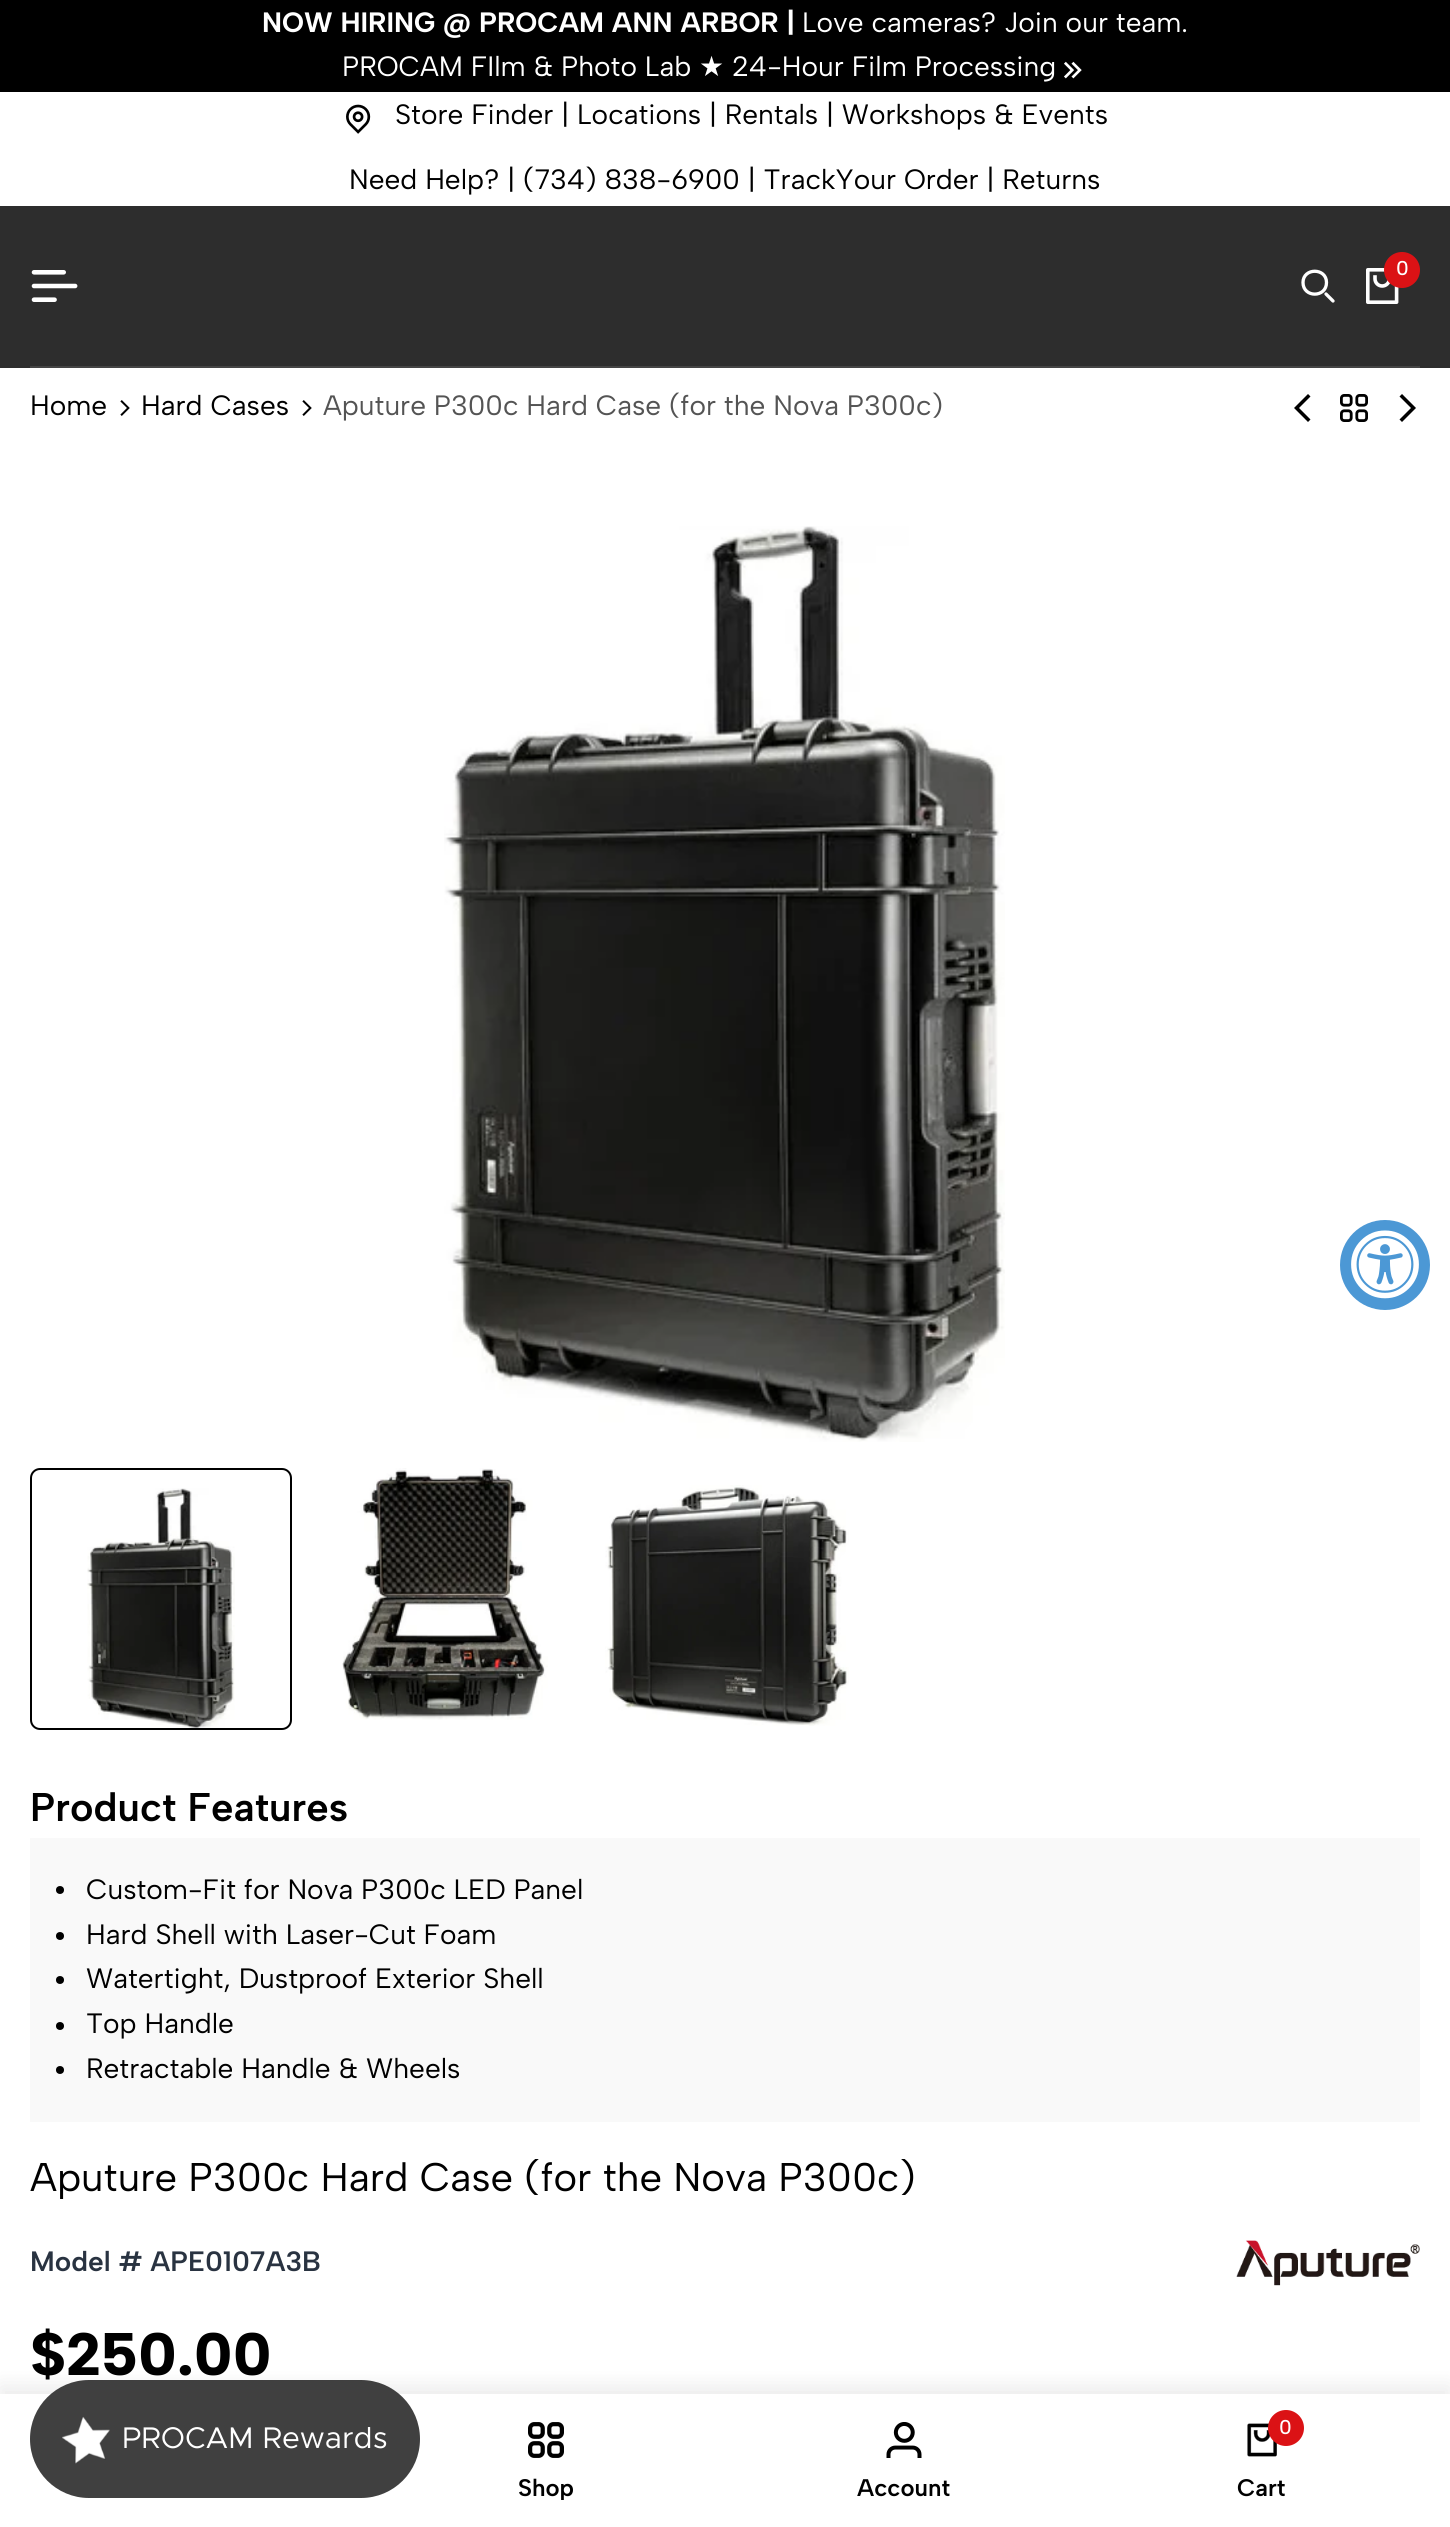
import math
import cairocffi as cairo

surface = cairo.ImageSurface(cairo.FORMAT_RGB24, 1450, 2527)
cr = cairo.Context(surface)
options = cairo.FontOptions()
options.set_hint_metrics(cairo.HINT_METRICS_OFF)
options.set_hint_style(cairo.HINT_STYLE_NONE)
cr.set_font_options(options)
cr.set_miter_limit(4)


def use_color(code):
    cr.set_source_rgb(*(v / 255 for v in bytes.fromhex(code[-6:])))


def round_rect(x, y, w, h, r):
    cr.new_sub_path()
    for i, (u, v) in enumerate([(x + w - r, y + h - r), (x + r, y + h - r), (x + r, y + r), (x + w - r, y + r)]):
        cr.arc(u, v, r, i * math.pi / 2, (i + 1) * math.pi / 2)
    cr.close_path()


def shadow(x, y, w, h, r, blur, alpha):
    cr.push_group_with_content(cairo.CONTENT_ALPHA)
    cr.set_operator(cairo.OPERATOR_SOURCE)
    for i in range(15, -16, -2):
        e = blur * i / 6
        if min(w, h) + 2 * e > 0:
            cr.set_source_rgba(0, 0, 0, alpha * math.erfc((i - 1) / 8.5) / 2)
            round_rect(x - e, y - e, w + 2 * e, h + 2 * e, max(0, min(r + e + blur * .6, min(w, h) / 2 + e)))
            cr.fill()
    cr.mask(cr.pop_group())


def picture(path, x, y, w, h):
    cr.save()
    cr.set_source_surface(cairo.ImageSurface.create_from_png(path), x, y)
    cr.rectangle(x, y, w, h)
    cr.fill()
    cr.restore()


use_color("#ffffff")
cr.paint()
use_color("#000000")
cr.rectangle(0, 0, 1450, 92)
cr.fill()
cr.select_font_face("Albert Sans", cairo.FONT_SLANT_NORMAL, cairo.FONT_WEIGHT_BOLD)
cr.set_font_size(28)
use_color("#ffffff")
cr.move_to(262, 32)
cr.show_text("NOW HIRING @ PROCAM ANN ARBOR |")
cr.select_font_face("Albert Sans")
cr.move_to(802, 32)
cr.show_text("Love cameras? Join our team.")
cr.move_to(342, 76)
cr.show_text("PROCAM FIlm & Photo Lab")
cr.select_font_face("DejaVu Sans")
cr.move_to(699, 76)
cr.show_text("★")
cr.select_font_face("Albert Sans")
cr.move_to(732, 76)
cr.show_text("24-Hour Film Processing")
picture("img1.png", 1064, 61, 18, 18)
picture("img2.png", 346, 104, 25, 30)
use_color("#000000")
cr.move_to(395, 124)
cr.show_text("Store Finder | Locations | Rentals | Workshops & Events")
cr.move_to(349, 189)
cr.show_text("Need Help? | (734) 838-6900 | TrackYour Order | Returns")
use_color("#2d2d2d")
cr.rectangle(0, 206, 1450, 162)
cr.fill()
cr.new_path()
cr.move_to(1333, 301)
cr.line_to(1326, 294)
cr.move_to(1326.5, 282.5)
cr.curve_to(1326.5, 298, 1303, 298, 1303, 282.5)
cr.curve_to(1303, 267.5, 1326.5, 267.5, 1326.5, 282.5)
cr.close_path()
use_color("#ffffff")
cr.set_line_width(3.3)
cr.set_line_cap(cairo.LINE_CAP_ROUND)
cr.set_line_join(cairo.LINE_JOIN_ROUND)
cr.stroke()
picture("img3.png", 1366, 268, 33, 36)
use_color("#db1215")
cr.arc(1402, 270, 18, 0, 2 * math.pi)
cr.fill()
cr.select_font_face("Albert Sans Medium")
cr.set_font_size(20)
use_color("#ffffff")
cr.move_to(1396, 275)
cr.show_text("0")
picture("img4.png", 31, 270, 47, 32)
use_color("#444444")
cr.rectangle(30, 366, 1390, 2)
cr.fill()
cr.select_font_face("Albert Sans")
cr.set_font_size(28)
use_color("#000000")
cr.move_to(30, 415)
cr.show_text("Home")
picture("img5.png", 120, 400, 10, 16)
cr.move_to(141, 415)
cr.show_text("Hard Cases")
picture("img5.png", 302, 400, 10, 16)
use_color("#545454")
cr.move_to(323, 415)
cr.show_text("Aputure P300c Hard Case (for the Nova P300c)")
use_color("#000000")
cr.new_path()
cr.move_to(1308, 394)
cr.line_to(1294, 408)
cr.line_to(1308, 422)
cr.line_to(1310.5, 419.5)
cr.line_to(1299, 408)
cr.line_to(1310.5, 396.5)
cr.close_path()
cr.fill()
picture("img6.png", 1340, 394, 28, 28)
cr.new_path()
cr.move_to(1402, 422)
cr.line_to(1416, 408)
cr.line_to(1402, 394)
cr.line_to(1399.5, 396.5)
cr.line_to(1411, 408)
cr.line_to(1399.5, 419.5)
cr.close_path()
cr.fill()
picture("img7.png", 444, 526, 561, 916)
picture("img8.png", 87, 1488, 148, 240)
round_rect(31, 1469, 260, 260, 9)
cr.set_line_width(2)
cr.set_line_cap(cairo.LINE_CAP_BUTT)
cr.set_line_join(cairo.LINE_JOIN_MITER)
cr.stroke()
picture("img9.png", 342, 1468, 206, 252)
picture("img10.png", 605, 1485, 244, 241)
cr.select_font_face("Albert Sans SemiBold")
cr.set_font_size(40)
cr.move_to(30, 1821)
cr.show_text("Product Features")
use_color("#f9f9f9")
cr.rectangle(30, 1838, 1390, 284)
cr.fill()
use_color("#000000")
cr.arc(60, 1890, 4, 0, 2 * math.pi)
cr.fill()
cr.select_font_face("Albert Sans")
cr.set_font_size(28)
cr.move_to(86, 1899)
cr.show_text("Custom-Fit for Nova P300c LED Panel")
cr.new_path()
cr.arc(60, 1936, 4, 0, 2 * math.pi)
cr.fill()
cr.move_to(86, 1944)
cr.show_text("Hard Shell with Laser-Cut Foam")
cr.new_path()
cr.arc(60, 1980, 4, 0, 2 * math.pi)
cr.fill()
cr.move_to(86, 1988)
cr.show_text("Watertight, Dustproof Exterior Shell")
cr.new_path()
cr.arc(60, 2026, 4, 0, 2 * math.pi)
cr.fill()
cr.move_to(86, 2033)
cr.show_text("Top Handle")
cr.new_path()
cr.arc(60, 2070, 4, 0, 2 * math.pi)
cr.fill()
cr.move_to(86, 2078)
cr.show_text("Retractable Handle & Wheels")
cr.set_font_size(40)
cr.move_to(30, 2191)
cr.show_text("Aputure P300c Hard Case (for the Nova P300c)")
cr.select_font_face("Albert Sans SemiBold")
cr.set_font_size(28)
use_color("#293341")
cr.move_to(30, 2271)
cr.show_text("Model # APE0107A3B")
picture("img11.png", 1236, 2240, 184, 46)
cr.select_font_face("Albert Sans ExtraBold")
cr.set_font_size(60)
use_color("#000000")
cr.move_to(30, 2375)
cr.show_text("$250.00")
use_color("#4c98d5")
cr.new_path()
cr.arc(1385, 1265, 45, 0, 2 * math.pi)
cr.fill()
picture("img12.png", 1351, 1230, 68, 69)
use_color("#000000")
shadow(0, 2386, 1450, 134, 0, 10, 0.08)
use_color("#ffffff")
cr.rectangle(0, 2394, 1450, 133)
cr.fill()
use_color("#404040")
round_rect(30, 2380, 390, 118, 59)
cr.fill()
picture("img13.png", 62, 2416, 48, 48)
cr.select_font_face("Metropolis")
cr.set_font_size(30)
use_color("#ffffff")
cr.move_to(122, 2448)
cr.show_text("PROCAM Rewards")
picture("img14.png", 528, 2422, 36, 36)
cr.save()
cr.rectangle(388, 2476, 318, 24)
cr.clip()
cr.select_font_face("Albert Sans SemiBold")
cr.set_font_size(24)
use_color("#000000")
cr.move_to(518, 2496)
cr.show_text("Shop")
cr.restore()
picture("img15.png", 886, 2422, 36, 36)
cr.select_font_face("Albert Sans SemiBold")
cr.set_font_size(24)
use_color("#000000")
cr.move_to(857, 2496)
cr.show_text("Account")
picture("img16.png", 1247, 2423, 30, 34)
use_color("#db1215")
cr.arc(1286, 2428, 18, 0, 2 * math.pi)
cr.fill()
cr.select_font_face("Albert Sans Medium")
cr.set_font_size(20)
use_color("#ffffff")
cr.move_to(1279, 2434)
cr.show_text("0")
cr.select_font_face("Albert Sans SemiBold")
cr.set_font_size(24)
use_color("#000000")
cr.move_to(1237, 2496)
cr.show_text("Cart")
surface.write_to_png("result.png")
